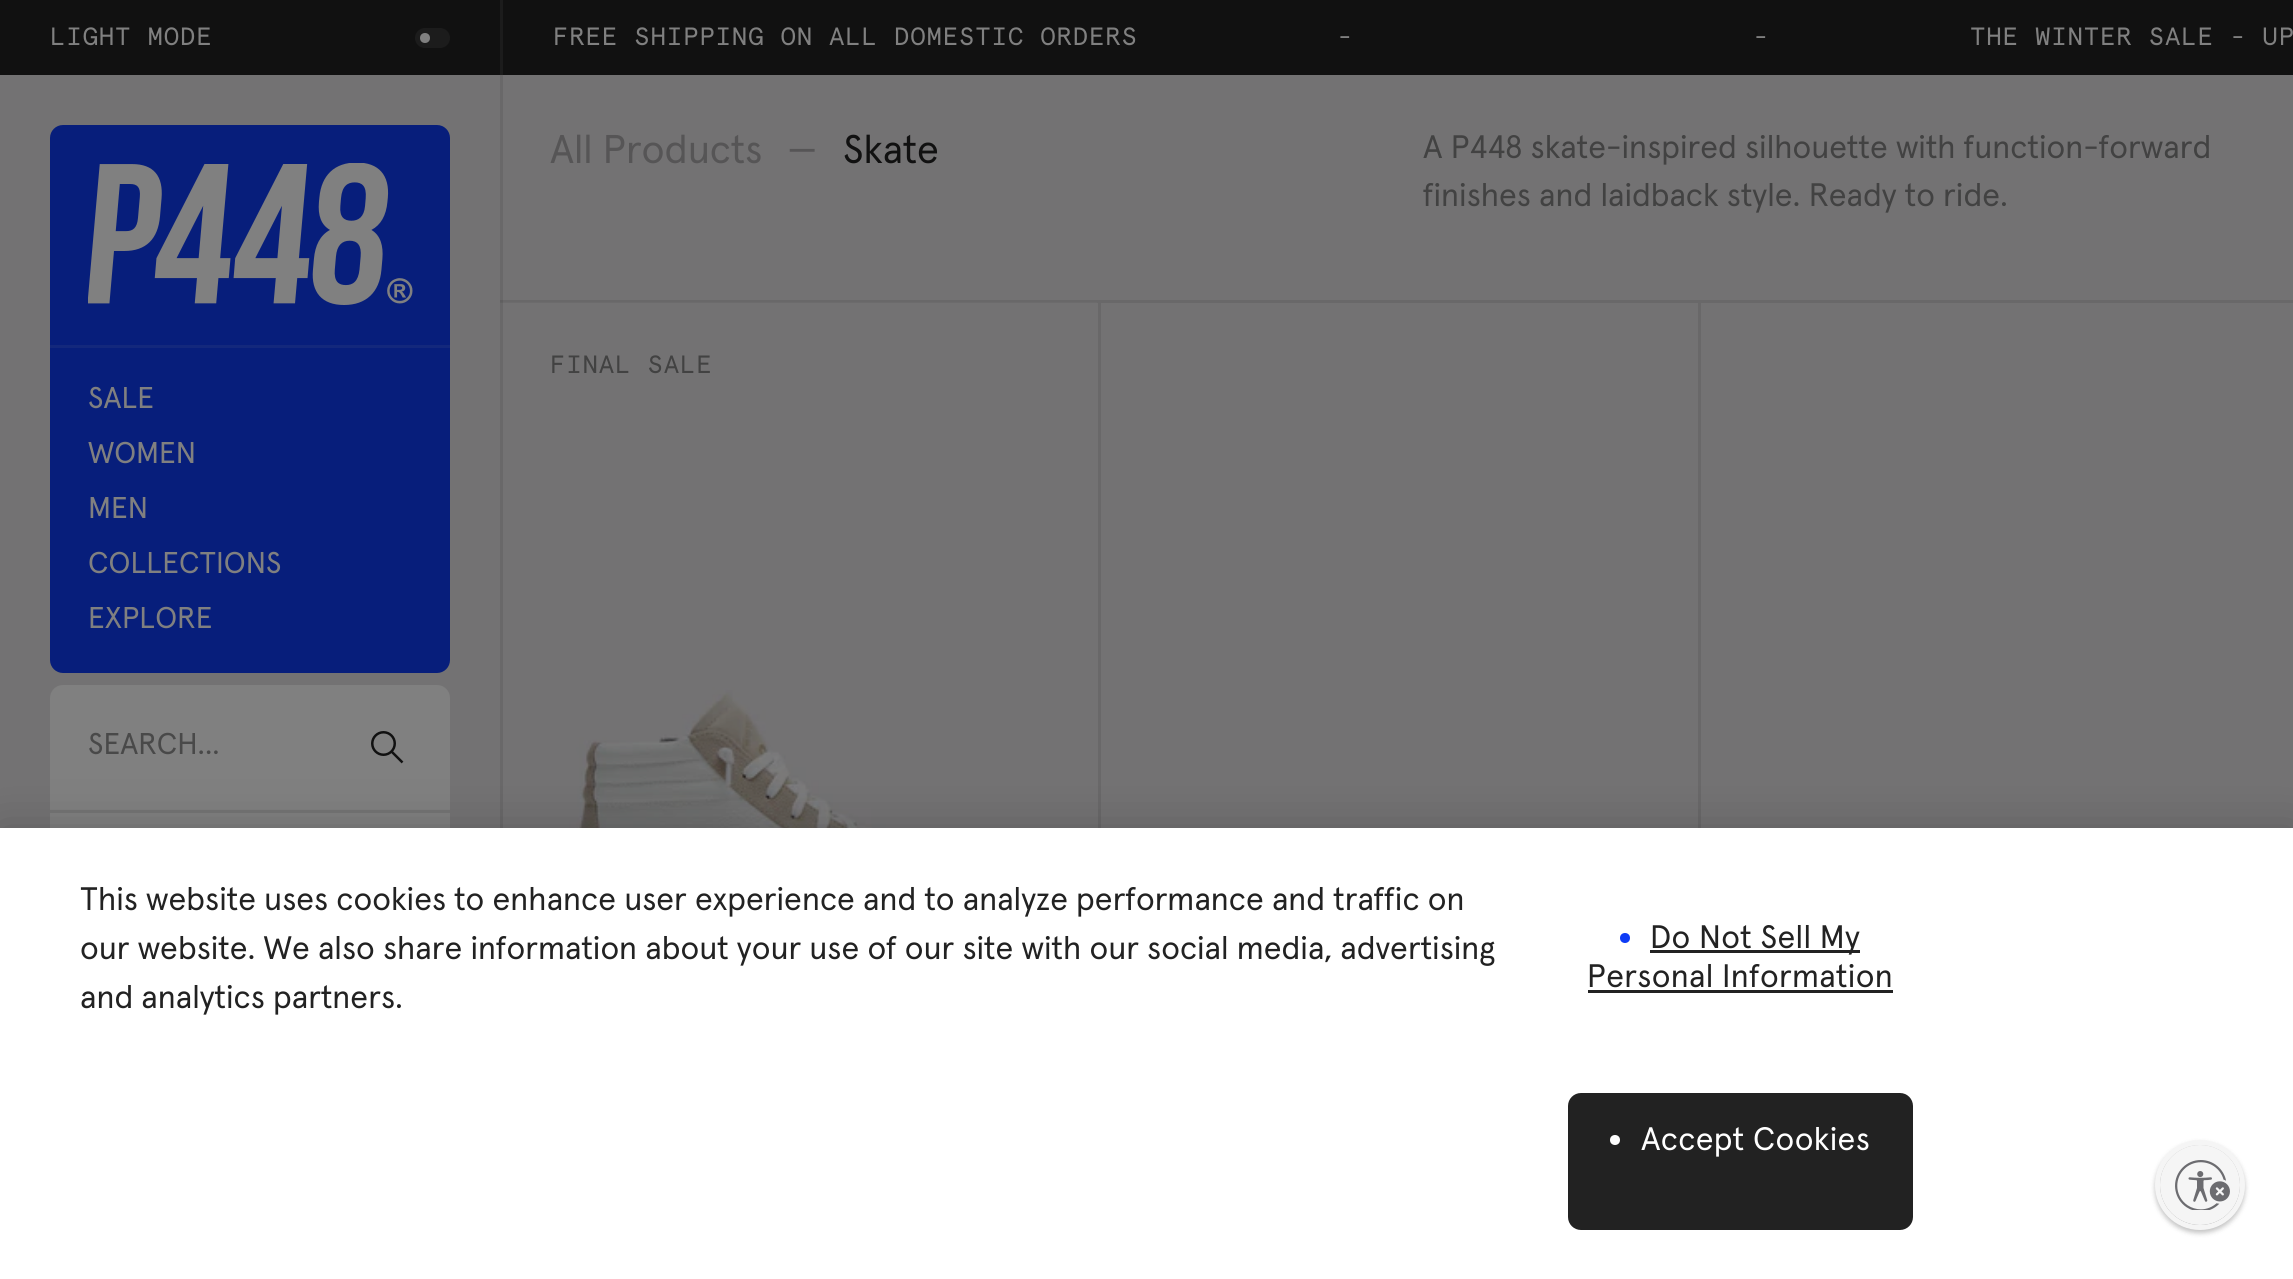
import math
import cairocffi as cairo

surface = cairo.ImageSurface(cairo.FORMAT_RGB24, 2293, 1279)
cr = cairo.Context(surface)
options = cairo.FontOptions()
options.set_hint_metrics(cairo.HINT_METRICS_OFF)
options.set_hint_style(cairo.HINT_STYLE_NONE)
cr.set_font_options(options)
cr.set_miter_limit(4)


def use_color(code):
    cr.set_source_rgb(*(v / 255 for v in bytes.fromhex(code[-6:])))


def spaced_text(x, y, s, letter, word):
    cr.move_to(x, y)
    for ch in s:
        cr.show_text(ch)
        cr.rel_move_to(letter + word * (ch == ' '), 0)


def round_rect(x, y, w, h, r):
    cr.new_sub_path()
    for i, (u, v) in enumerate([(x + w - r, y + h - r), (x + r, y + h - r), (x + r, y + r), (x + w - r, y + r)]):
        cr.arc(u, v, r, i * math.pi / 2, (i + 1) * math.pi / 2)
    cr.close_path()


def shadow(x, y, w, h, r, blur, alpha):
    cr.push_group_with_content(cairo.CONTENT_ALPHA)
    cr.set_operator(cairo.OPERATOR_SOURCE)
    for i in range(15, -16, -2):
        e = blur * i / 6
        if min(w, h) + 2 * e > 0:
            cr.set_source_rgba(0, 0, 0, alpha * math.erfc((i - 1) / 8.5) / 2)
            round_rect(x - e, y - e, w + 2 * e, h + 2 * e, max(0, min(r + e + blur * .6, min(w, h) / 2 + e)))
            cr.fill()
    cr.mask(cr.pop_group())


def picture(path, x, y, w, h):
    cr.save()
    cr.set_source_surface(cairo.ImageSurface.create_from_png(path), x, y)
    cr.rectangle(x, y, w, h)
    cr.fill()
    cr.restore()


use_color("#737273")
cr.paint()
use_color("#111111")
cr.rectangle(0, 0, 2293, 75)
cr.fill()
use_color("#1c1c1c")
cr.rectangle(500, 0, 3, 75)
cr.fill()
cr.select_font_face("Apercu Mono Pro")
cr.set_font_size(25)
use_color("#808080")
spaced_text(50, 45, "LIGHT MODE", 0.75, 0)
use_color("#1c1c1c")
round_rect(415, 28, 35, 20, 10)
cr.fill()
use_color("#808080")
cr.arc(425, 38, 5, 0, 2 * math.pi)
cr.fill()
spaced_text(553, 45, "FREE SHIPPING ON ALL DOMESTIC ORDERS", 0.75, 0)
spaced_text(1337, 45, "-", 0.75, 0)
spaced_text(1753, 45, "-", 0.75, 0)
spaced_text(1970, 45, "THE WINTER SALE - UP", 0.75, 0)
use_color("#071e7b")
round_rect(50, 125, 400, 548, 13)
cr.fill()
use_color("#13287c")
cr.rectangle(50, 345, 400, 3)
cr.fill()
picture("img1.png", 88, 163, 325, 142)
cr.select_font_face("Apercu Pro")
cr.set_font_size(30)
use_color("#808080")
cr.move_to(88, 408)
cr.show_text("SALE")
cr.move_to(88, 463)
cr.show_text("WOMEN")
cr.move_to(88, 518)
cr.show_text("MEN")
cr.move_to(88, 573)
cr.show_text("COLLECTIONS")
cr.move_to(88, 628)
cr.show_text("EXPLORE")
round_rect(50, 685, 400, 328, 13)
cr.fill()
use_color("#757575")
cr.rectangle(50, 810, 400, 3)
cr.fill()
use_color("#494949")
cr.move_to(88, 754)
cr.show_text("SEARCH...")
cr.new_path()
cr.arc(383.5, 743.5, 11.25, 0, 2 * math.pi)
use_color("#111111")
cr.set_line_width(2.5)
cr.stroke()
cr.new_path()
cr.move_to(391, 751)
cr.line_to(402.5, 762.5)
cr.set_line_join(cairo.LINE_JOIN_ROUND)
cr.stroke()
use_color("#696869")
cr.rectangle(500, 300, 1793, 3)
cr.fill()
picture("img2.png", 500, 302, 597, 526)
cr.set_source_rgba(0.067, 0.067, 0.067, 0.1)
cr.rectangle(500, 75, 3, 753)
cr.fill()
cr.set_font_size(40)
use_color("#565556")
cr.move_to(550, 163)
cr.show_text("All Products")
cr.move_to(787, 163)
cr.show_text("—")
use_color("#111111")
cr.move_to(843, 163)
cr.show_text("Skate")
cr.set_font_size(32.5)
use_color("#424242")
cr.move_to(1423, 158)
cr.show_text("A P448 skate-inspired silhouette with function-forward")
cr.move_to(1423, 206)
cr.show_text("finishes and laidback style. Ready to ride.")
cr.select_font_face("Apercu Mono Pro")
cr.set_font_size(25)
spaced_text(550, 373, "FINAL SALE", 0.75, 0)
use_color("#696869")
cr.rectangle(1098, 303, 3, 525)
cr.fill()
cr.rectangle(1698, 303, 3, 525)
cr.fill()
use_color("#000000")
shadow(0, 828, 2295, 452, 0, 22.5, 0.2)
use_color("#ffffff")
cr.rectangle(0, 828, 2293, 451)
cr.fill()
cr.select_font_face("Apercu Pro")
cr.set_font_size(32.5)
use_color("#222222")
cr.move_to(80, 910)
cr.show_text("This website uses cookies to enhance user experience and to analyze performance and traffic on")
cr.move_to(80, 959)
cr.show_text("our website. We also share information about your use of our site with our social media, advertising")
cr.move_to(80, 1008)
cr.show_text("and analytics partners.")
use_color("#0e3cf6")
cr.new_path()
cr.arc(1625, 938, 5, 0, 2 * math.pi)
cr.fill()
use_color("#222222")
cr.rectangle(1650, 950, 210, 3)
cr.fill()
spaced_text(1650, 948, "Do Not Sell My", 0.3, 0)
spaced_text(1587, 987, "Personal Information", 0.3, 0)
cr.rectangle(1588, 990, 305, 3)
cr.fill()
round_rect(1568, 1093, 345, 137, 13)
cr.fill()
use_color("#ffffff")
cr.arc(1615, 1140, 5, 0, 2 * math.pi)
cr.fill()
spaced_text(1641, 1150, "Accept Cookies", 0.3, 0)
use_color("#000000")
shadow(2155, 1143, 90, 90, 45, 2.5, 0.24)
cr.arc(2200, 1185, 42.5, 0, 2 * math.pi)
use_color("#f5f5f5")
cr.set_line_width(5)
cr.set_line_join(cairo.LINE_JOIN_MITER)
cr.stroke()
cr.save()
round_rect(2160, 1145, 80, 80, 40)
cr.clip()
use_color("#000000")
shadow(2160, 1148, 80, 80, 40, 2.5, 0.24)
cr.restore()
cr.arc(2200, 1185, 40, 0, 2 * math.pi)
cr.fill()
picture("img3.png", 2175, 1160, 55, 50)
surface.write_to_png("result.png")
